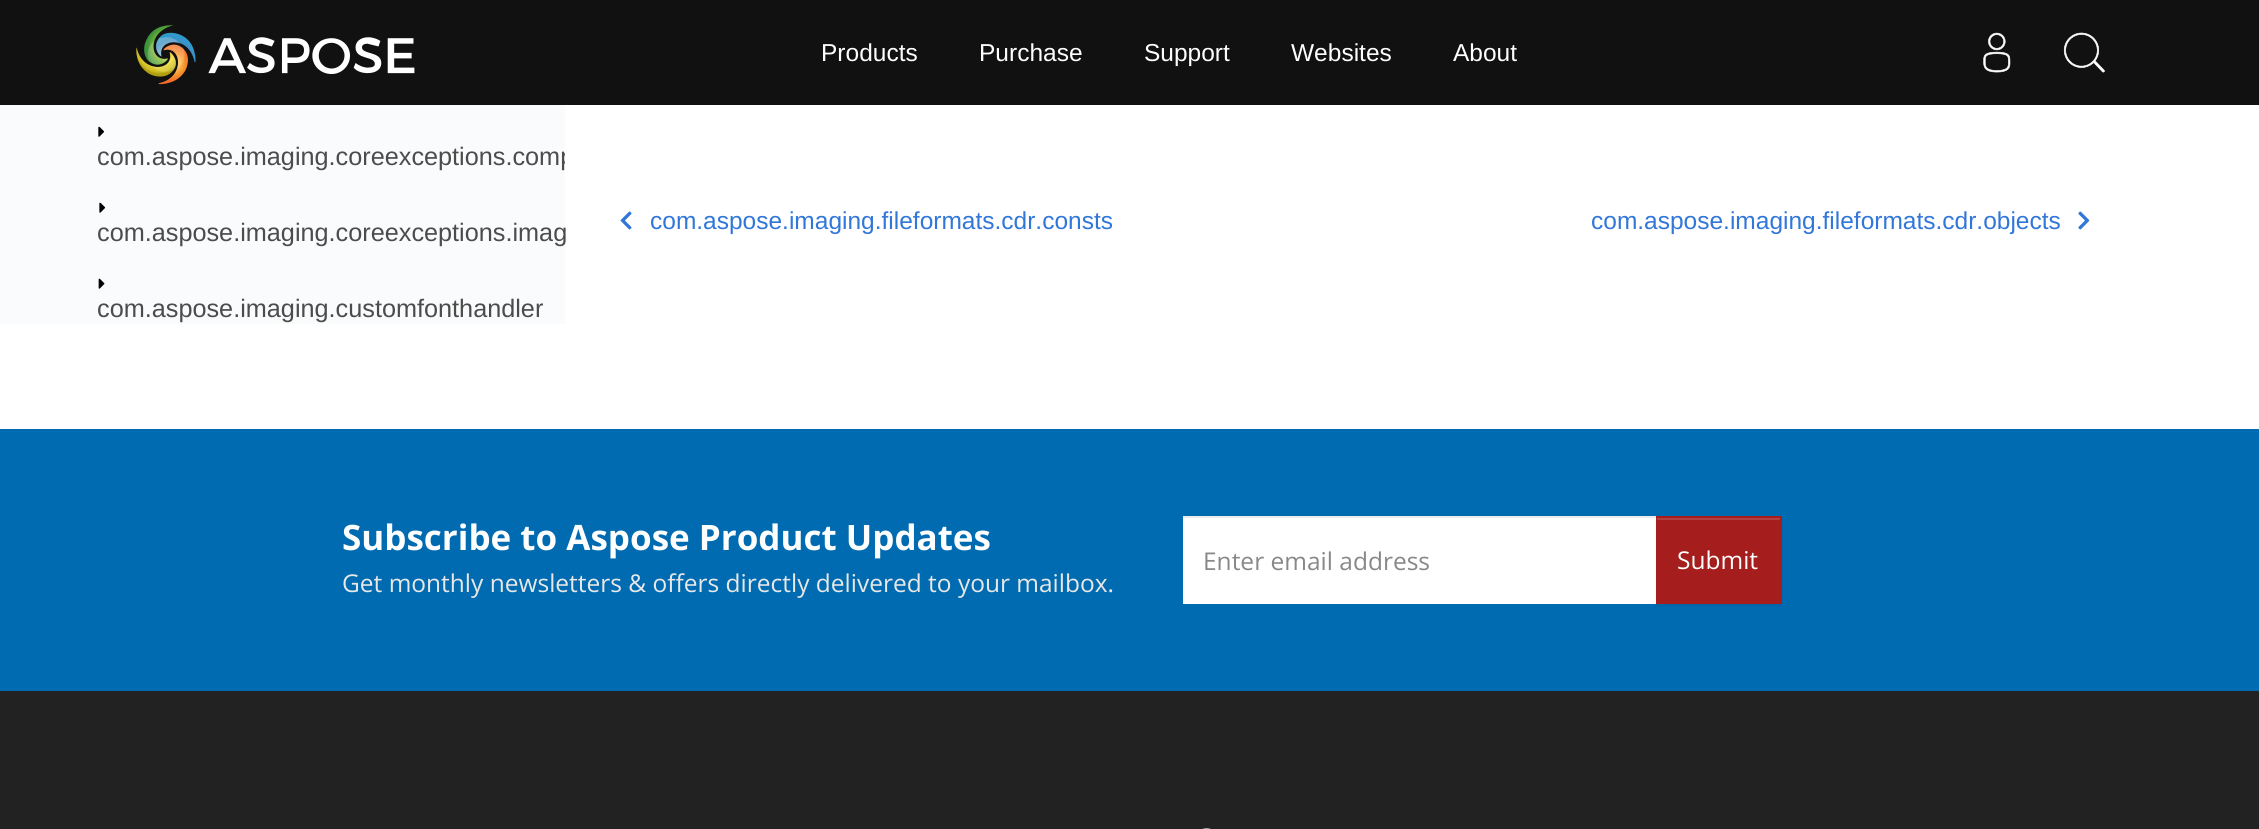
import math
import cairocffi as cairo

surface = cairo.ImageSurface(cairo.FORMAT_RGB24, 2259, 829)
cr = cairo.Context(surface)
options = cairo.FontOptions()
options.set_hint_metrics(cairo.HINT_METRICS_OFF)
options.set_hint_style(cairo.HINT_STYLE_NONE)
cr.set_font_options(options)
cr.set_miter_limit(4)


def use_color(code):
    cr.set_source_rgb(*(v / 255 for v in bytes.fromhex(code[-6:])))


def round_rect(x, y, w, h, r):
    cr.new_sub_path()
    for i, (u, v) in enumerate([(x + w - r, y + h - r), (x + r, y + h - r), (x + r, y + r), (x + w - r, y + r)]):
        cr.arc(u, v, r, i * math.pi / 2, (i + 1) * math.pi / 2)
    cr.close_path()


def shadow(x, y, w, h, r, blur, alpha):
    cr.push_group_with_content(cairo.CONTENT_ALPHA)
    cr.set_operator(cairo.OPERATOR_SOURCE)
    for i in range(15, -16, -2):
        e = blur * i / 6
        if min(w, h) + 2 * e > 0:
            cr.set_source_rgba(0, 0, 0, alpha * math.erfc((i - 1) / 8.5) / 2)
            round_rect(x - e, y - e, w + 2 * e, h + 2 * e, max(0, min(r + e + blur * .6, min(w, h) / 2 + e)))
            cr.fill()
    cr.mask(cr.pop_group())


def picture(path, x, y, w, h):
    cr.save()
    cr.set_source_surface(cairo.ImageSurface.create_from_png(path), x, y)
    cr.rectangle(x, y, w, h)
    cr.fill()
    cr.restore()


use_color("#ffffff")
cr.paint()
use_color("#111111")
cr.rectangle(0, 0, 2259, 105)
cr.fill()
picture("img1.png", 136, 25, 279, 60)
cr.select_font_face("Liberation Sans")
cr.set_font_size(24.5)
use_color("#fefefe")
cr.move_to(821, 61)
cr.show_text("Products")
cr.move_to(979, 61)
cr.show_text("Purchase")
cr.move_to(1144, 61)
cr.show_text("Support")
cr.move_to(1291, 61)
cr.show_text("Websites")
cr.move_to(1453, 61)
cr.show_text("About")
picture("img2.png", 1983, 32, 28, 41)
picture("img3.png", 2063, 32, 42, 41)
use_color("#f9fbfc")
cr.rectangle(0, 105, 565, 219)
cr.fill()
picture("img4.png", 98, 126, 6, 11)
cr.save()
cr.rectangle(26, 0, 539, 324)
cr.clip()
cr.set_font_size(25.25)
use_color("#4c4c4c")
cr.move_to(97, 165)
cr.show_text("com.aspose.imaging.coreexceptions.comp")
cr.restore()
picture("img5.png", 99, 202, 7, 11)
cr.set_font_size(25.25)
use_color("#4c4c4c")
cr.move_to(97, 241)
cr.show_text("com.aspose.imaging.coreexceptions.imag")
picture("img6.png", 98, 278, 7, 11)
cr.move_to(97, 317)
cr.show_text("com.aspose.imaging.customfonthandler")
picture("img7.png", 620, 211, 12, 19)
cr.set_font_size(24.5)
use_color("#3176d9")
cr.move_to(650, 229)
cr.show_text("com.aspose.imaging.fileformats.cdr.consts")
cr.move_to(1591, 229)
cr.show_text("com.aspose.imaging.fileformats.cdr.objects")
picture("img8.png", 2078, 211, 12, 19)
use_color("#006bb0")
cr.rectangle(0, 429, 2259, 262)
cr.fill()
cr.select_font_face("Open Sans", cairo.FONT_SLANT_NORMAL, cairo.FONT_WEIGHT_BOLD)
cr.set_font_size(35)
use_color("#fefefe")
cr.move_to(342, 550)
cr.show_text("Subscribe to Aspose Product Updates")
cr.select_font_face("Open Sans")
cr.set_font_size(24.5)
use_color("#e8e8e8")
cr.move_to(342, 592)
cr.show_text("Get monthly newsletters & offers directly delivered to your mailbox.")
use_color("#ffffff")
cr.rectangle(1183, 518, 473, 86)
cr.fill()
use_color("#ececec")
cr.rectangle(1183, 516, 473, 2)
cr.fill()
use_color("#888888")
cr.move_to(1203, 570)
cr.show_text("Enter email address")
use_color("#000000")
shadow(1656, 518, 126, 88, 0, 1, 0.07)
use_color("#a51e1d")
cr.rectangle(1656, 516, 126, 88)
cr.fill()
use_color("#b3403f")
cr.rectangle(1657, 518, 123, 2)
cr.fill()
use_color("#fefefe")
cr.move_to(1677, 569)
cr.show_text("Submit")
gradient = cairo.LinearGradient(1130, 691, 1130, 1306)
gradient.add_color_stop_rgba(0.3, 0.133, 0.133, 0.133, 1)
gradient.add_color_stop_rgba(1, 0.267, 0.267, 0.267, 1)
cr.set_source(gradient)
cr.rectangle(0, 691, 2259, 138)
cr.fill()
picture("img9.png", 1202, 828, 9, 1)
surface.write_to_png("result.png")
